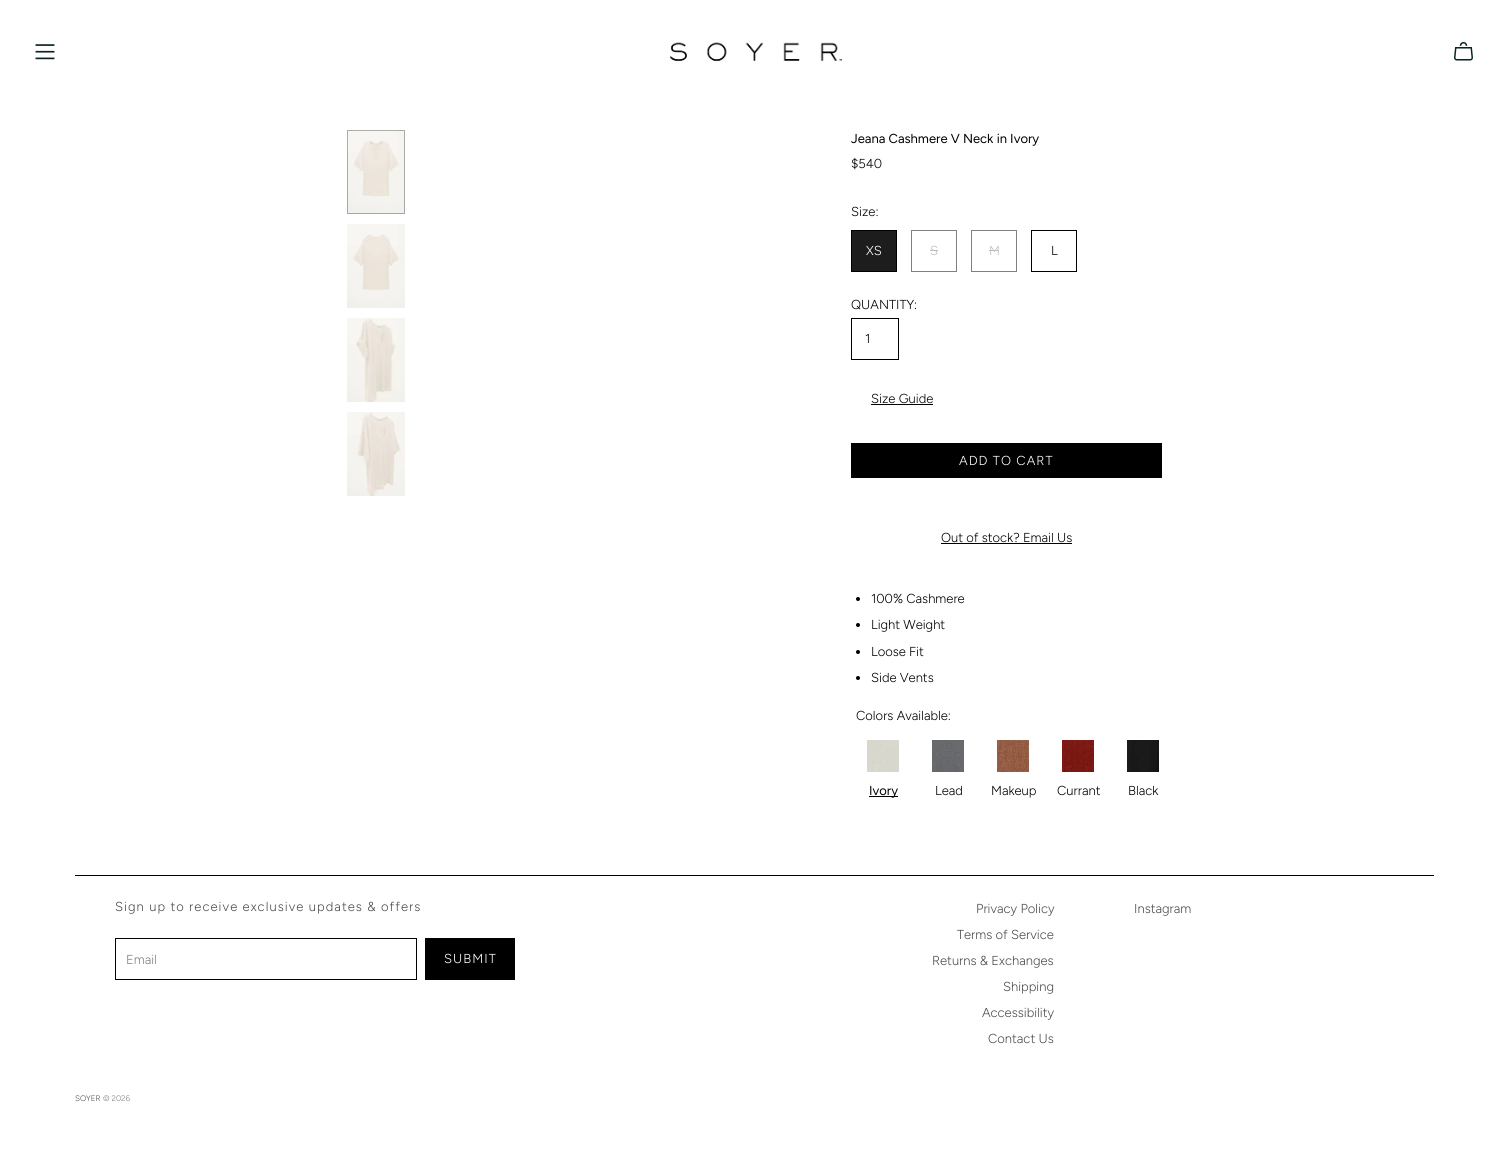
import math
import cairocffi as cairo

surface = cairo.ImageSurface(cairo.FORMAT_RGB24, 1509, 1157)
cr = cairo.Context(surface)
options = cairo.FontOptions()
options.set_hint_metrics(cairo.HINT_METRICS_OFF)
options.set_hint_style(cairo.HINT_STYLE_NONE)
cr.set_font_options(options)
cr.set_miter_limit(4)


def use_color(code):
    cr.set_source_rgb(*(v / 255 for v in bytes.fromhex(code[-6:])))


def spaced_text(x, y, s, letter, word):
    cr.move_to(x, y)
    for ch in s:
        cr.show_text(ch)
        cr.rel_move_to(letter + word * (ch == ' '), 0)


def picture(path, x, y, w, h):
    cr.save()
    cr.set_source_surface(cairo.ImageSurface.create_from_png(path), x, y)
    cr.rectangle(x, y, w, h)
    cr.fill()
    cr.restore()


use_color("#ffffff")
cr.paint()
picture("img1.png", 35, 44, 20, 16)
picture("img2.png", 1454, 42, 19, 19)
picture("img3.png", 669, 42, 173, 20)
picture("img4.png", 347, 130, 58, 84)
cr.rectangle(347.5, 130.5, 57, 83)
cr.set_source_rgba(0, 0, 0, 0.3)
cr.set_line_width(1)
cr.stroke()
picture("img5.png", 347, 224, 58, 84)
picture("img6.png", 347, 318, 58, 84)
picture("img7.png", 347, 412, 58, 84)
cr.select_font_face("Figtree")
cr.set_font_size(13)
use_color("#000000")
cr.move_to(851, 143)
cr.show_text("Jeana Cashmere V Neck in Ivory")
cr.select_font_face("Figtree Light")
cr.move_to(851, 168)
cr.show_text("$540")
cr.move_to(851, 216)
cr.show_text("Size:")
use_color("#1e1d1d")
cr.rectangle(851.5, 230.5, 45, 41)
cr.fill_preserve()
use_color("#000000")
cr.stroke()
use_color("#ffffff")
cr.move_to(866, 255)
cr.show_text("XS")
cr.rectangle(911.5, 230.5, 45, 41)
use_color("#808080")
cr.stroke()
use_color("#bfbfbf")
cr.move_to(930, 255)
cr.show_text("S")
cr.rectangle(930, 250, 8, 1)
cr.fill()
cr.rectangle(971.5, 230.5, 45, 41)
use_color("#808080")
cr.stroke()
use_color("#bfbfbf")
cr.move_to(989, 255)
cr.show_text("M")
cr.rectangle(989, 250, 10, 1)
cr.fill()
cr.rectangle(1031.5, 230.5, 45, 41)
use_color("#000000")
cr.stroke()
cr.move_to(1051, 255)
cr.show_text("L")
cr.move_to(851, 309)
cr.show_text("QUANTITY:")
cr.rectangle(851.5, 318.5, 47, 41)
cr.stroke()
cr.move_to(865, 343)
cr.show_text("1")
cr.move_to(871, 403)
cr.show_text("Size Guide")
cr.rectangle(871, 404, 62, 1)
cr.fill()
cr.rectangle(851, 443, 311, 35)
cr.fill()
use_color("#ffffff")
spaced_text(959, 465, "ADD TO CART", 1.05, 0)
use_color("#000000")
cr.move_to(941, 542)
cr.show_text("Out of stock? Email Us")
cr.rectangle(941, 543, 131, 1)
cr.fill()
cr.arc(858, 599, 2, 0, 2 * math.pi)
cr.fill()
cr.move_to(871, 603)
cr.show_text("100% Cashmere")
cr.new_path()
cr.arc(858, 625, 2, 0, 2 * math.pi)
cr.fill()
cr.move_to(871, 629)
cr.show_text("Light Weight")
cr.new_path()
cr.arc(858, 652, 2, 0, 2 * math.pi)
cr.fill()
cr.move_to(871, 656)
cr.show_text("Loose Fit")
cr.new_path()
cr.arc(858, 678, 2, 0, 2 * math.pi)
cr.fill()
cr.move_to(871, 682)
cr.show_text("Side Vents")
cr.move_to(856, 720)
cr.show_text("Colors Available:")
picture("img8.png", 867, 740, 32, 32)
picture("img9.png", 932, 740, 32, 32)
picture("img10.png", 997, 740, 32, 32)
picture("img11.png", 1062, 740, 32, 32)
picture("img12.png", 1127, 740, 32, 32)
cr.rectangle(869, 796, 29, 1)
cr.fill()
cr.select_font_face("Figtree")
cr.move_to(869, 795)
cr.show_text("Ivory")
cr.select_font_face("Figtree Light")
cr.move_to(935, 795)
cr.show_text("Lead")
cr.move_to(991, 795)
cr.show_text("Makeup")
cr.move_to(1057, 795)
cr.show_text("Currant")
cr.move_to(1128, 795)
cr.show_text("Black")
cr.rectangle(75, 875, 1359, 1)
cr.fill()
use_color("#4c4c4c")
spaced_text(115, 911, "Sign up to receive exclusive updates & offers", 1.05, 0)
cr.rectangle(115.5, 938.5, 301, 41)
use_color("#000000")
cr.stroke()
use_color("#7f7f7f")
cr.move_to(126, 964)
cr.show_text("Email")
use_color("#000000")
cr.rectangle(425, 938, 90, 42)
cr.fill()
use_color("#ffffff")
spaced_text(444, 963, "SUBMIT", 1.05, 0)
use_color("#4c4c4c")
cr.move_to(976, 913)
cr.show_text("Privacy Policy")
cr.move_to(957, 939)
cr.show_text("Terms of Service")
cr.move_to(932, 965)
cr.show_text("Returns & Exchanges")
cr.move_to(1003, 991)
cr.show_text("Shipping")
cr.move_to(982, 1017)
cr.show_text("Accessibility")
cr.move_to(988, 1043)
cr.show_text("Contact Us")
cr.move_to(1134, 913)
cr.show_text("Instagram")
cr.set_font_size(8)
cr.move_to(75, 1101)
cr.show_text("SOYER")
use_color("#7f7f7f")
cr.move_to(103, 1101)
cr.show_text("© 2026")
surface.write_to_png("result.png")
